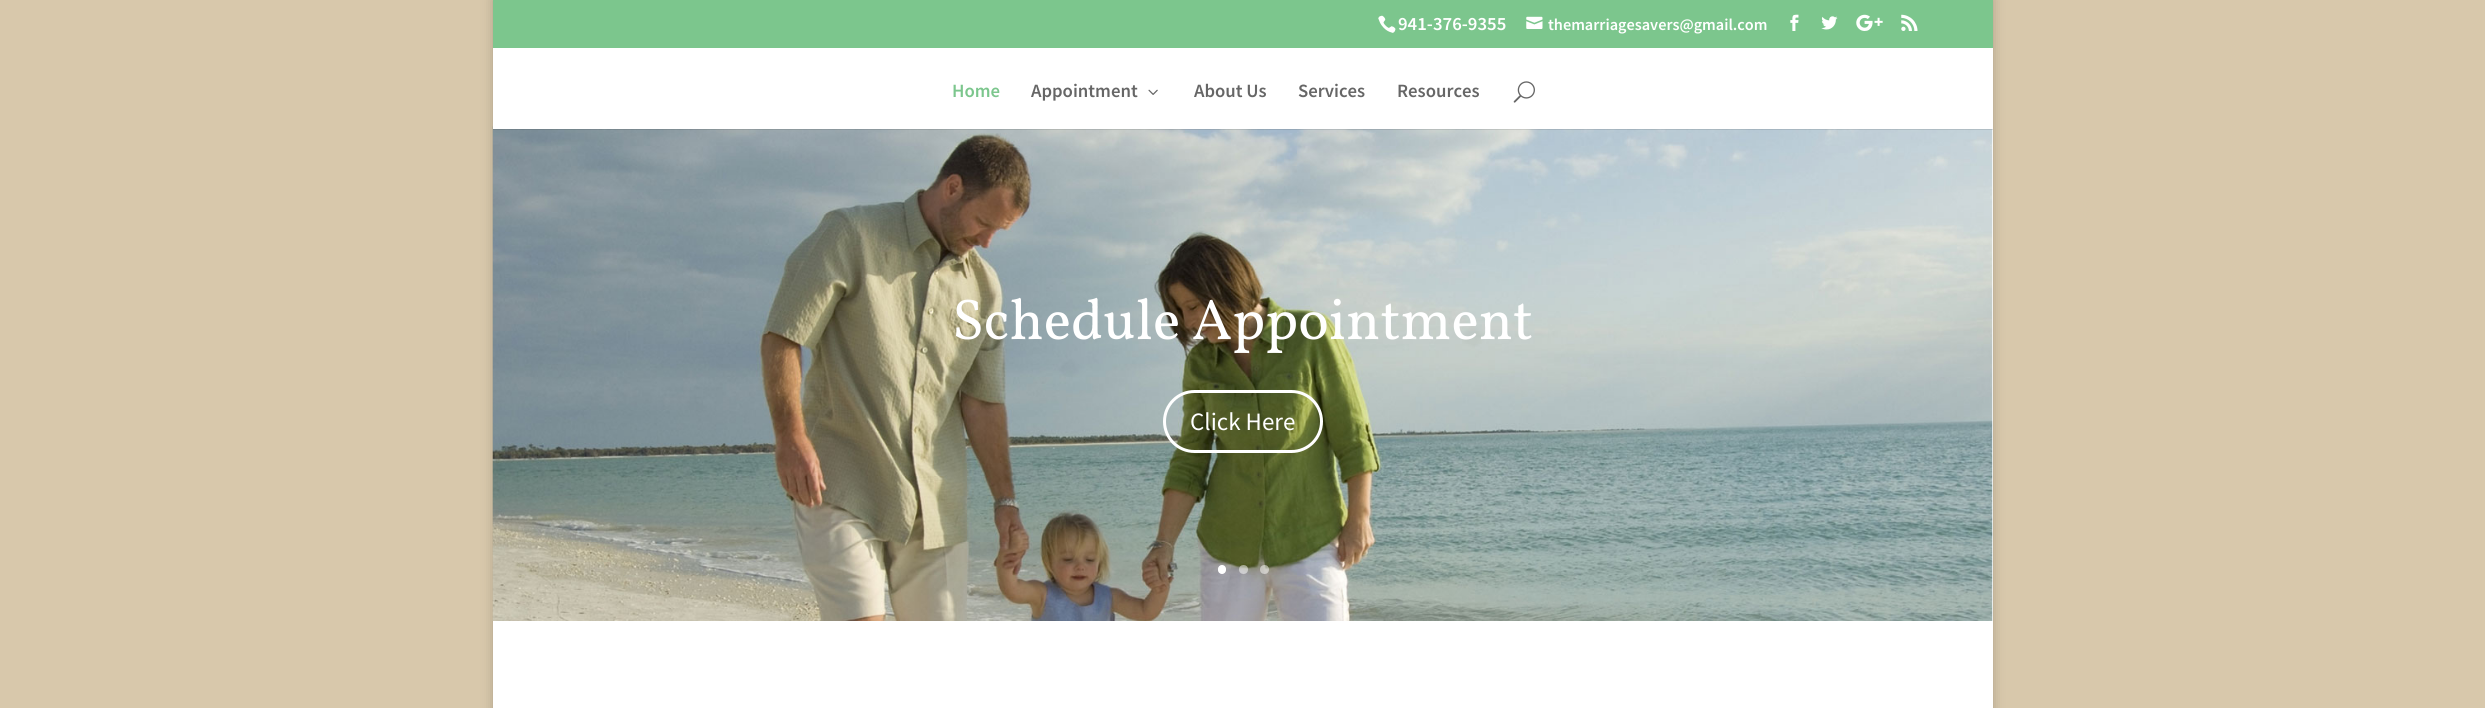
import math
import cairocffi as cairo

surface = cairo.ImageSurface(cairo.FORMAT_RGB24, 2485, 708)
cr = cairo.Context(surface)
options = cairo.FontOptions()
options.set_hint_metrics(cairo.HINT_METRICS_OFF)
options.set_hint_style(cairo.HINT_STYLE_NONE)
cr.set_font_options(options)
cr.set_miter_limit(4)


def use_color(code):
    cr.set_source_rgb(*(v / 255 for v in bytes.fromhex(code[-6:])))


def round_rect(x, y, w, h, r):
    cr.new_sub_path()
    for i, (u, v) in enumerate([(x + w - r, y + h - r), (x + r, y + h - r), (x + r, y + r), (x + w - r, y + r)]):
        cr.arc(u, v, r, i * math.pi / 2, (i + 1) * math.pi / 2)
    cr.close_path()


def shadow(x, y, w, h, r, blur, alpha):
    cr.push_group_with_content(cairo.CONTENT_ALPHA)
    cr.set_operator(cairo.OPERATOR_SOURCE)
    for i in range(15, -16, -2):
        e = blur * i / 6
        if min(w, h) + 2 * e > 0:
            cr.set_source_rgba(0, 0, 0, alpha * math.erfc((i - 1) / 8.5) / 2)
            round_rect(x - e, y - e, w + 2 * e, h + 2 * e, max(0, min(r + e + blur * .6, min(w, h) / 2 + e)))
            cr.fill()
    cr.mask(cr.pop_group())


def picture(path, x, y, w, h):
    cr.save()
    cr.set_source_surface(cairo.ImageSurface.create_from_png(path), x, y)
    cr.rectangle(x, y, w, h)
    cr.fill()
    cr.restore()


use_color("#d8c8ab")
cr.paint()
use_color("#000000")
shadow(493, -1, 1500, 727, 0, 6, 0.2)
use_color("#7cc68d")
cr.rectangle(493, 0, 1500, 48)
cr.fill()
picture("img1.png", 1378, 15, 18, 18)
cr.select_font_face("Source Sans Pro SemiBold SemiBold")
cr.set_font_size(18.75)
use_color("#ffffff")
cr.move_to(1398, 30)
cr.show_text("941-376-9355")
picture("img2.png", 1526, 16, 17, 13)
cr.set_font_size(16.25)
cr.move_to(1548, 30)
cr.show_text("themarriagesavers@gmail.com")
picture("img3.png", 1790, 14, 9, 17)
picture("img4.png", 1821, 16, 17, 14)
picture("img5.png", 1856, 14, 27, 17)
picture("img6.png", 1901, 14, 17, 17)
cr.rectangle(1992, 129, 1, 492)
cr.fill()
picture("img9.png", 492, 126, 1501, 495)
cr.set_source_rgba(0, 0, 0, 0.1)
cr.new_path()
cr.move_to(493, 129)
cr.line_to(493, 130)
cr.line_to(1993, 130)
cr.line_to(1993, 49)
cr.line_to(1992, 49)
cr.line_to(1992, 129)
cr.close_path()
cr.fill()
use_color("#ffffff")
cr.rectangle(493, 48, 1500, 81)
cr.fill()
cr.set_font_size(18.75)
use_color("#7cc68d")
cr.move_to(952, 97)
cr.show_text("Home")
use_color("#666666")
cr.move_to(1031, 97)
cr.show_text("Appointment")
picture("img7.png", 1148, 89, 10, 6)
cr.move_to(1194, 97)
cr.show_text("About Us")
cr.move_to(1298, 97)
cr.show_text("Services")
cr.move_to(1397, 97)
cr.show_text("Resources")
picture("img8.png", 1513, 81, 22, 22)
cr.select_font_face("Vollkorn")
cr.set_font_size(57.5)
use_color("#ffffff")
cr.move_to(952, 339)
cr.show_text("Schedule Appointment")
round_rect(1164.5, 391.5, 157, 60, 30)
cr.set_line_width(3)
cr.stroke()
cr.select_font_face("Source Sans Pro")
cr.set_font_size(25)
cr.move_to(1190, 430)
cr.show_text("Click Here")
round_rect(1218, 565, 8, 9, 4)
cr.fill()
cr.set_source_rgba(1, 1, 1, 0.5)
cr.arc(1243.5, 569.5, 4.5, 0, 2 * math.pi)
cr.fill()
cr.arc(1264.5, 569.5, 4.5, 0, 2 * math.pi)
cr.fill()
use_color("#ffffff")
cr.rectangle(493, 621, 1500, 87)
cr.fill()
surface.write_to_png("result.png")
